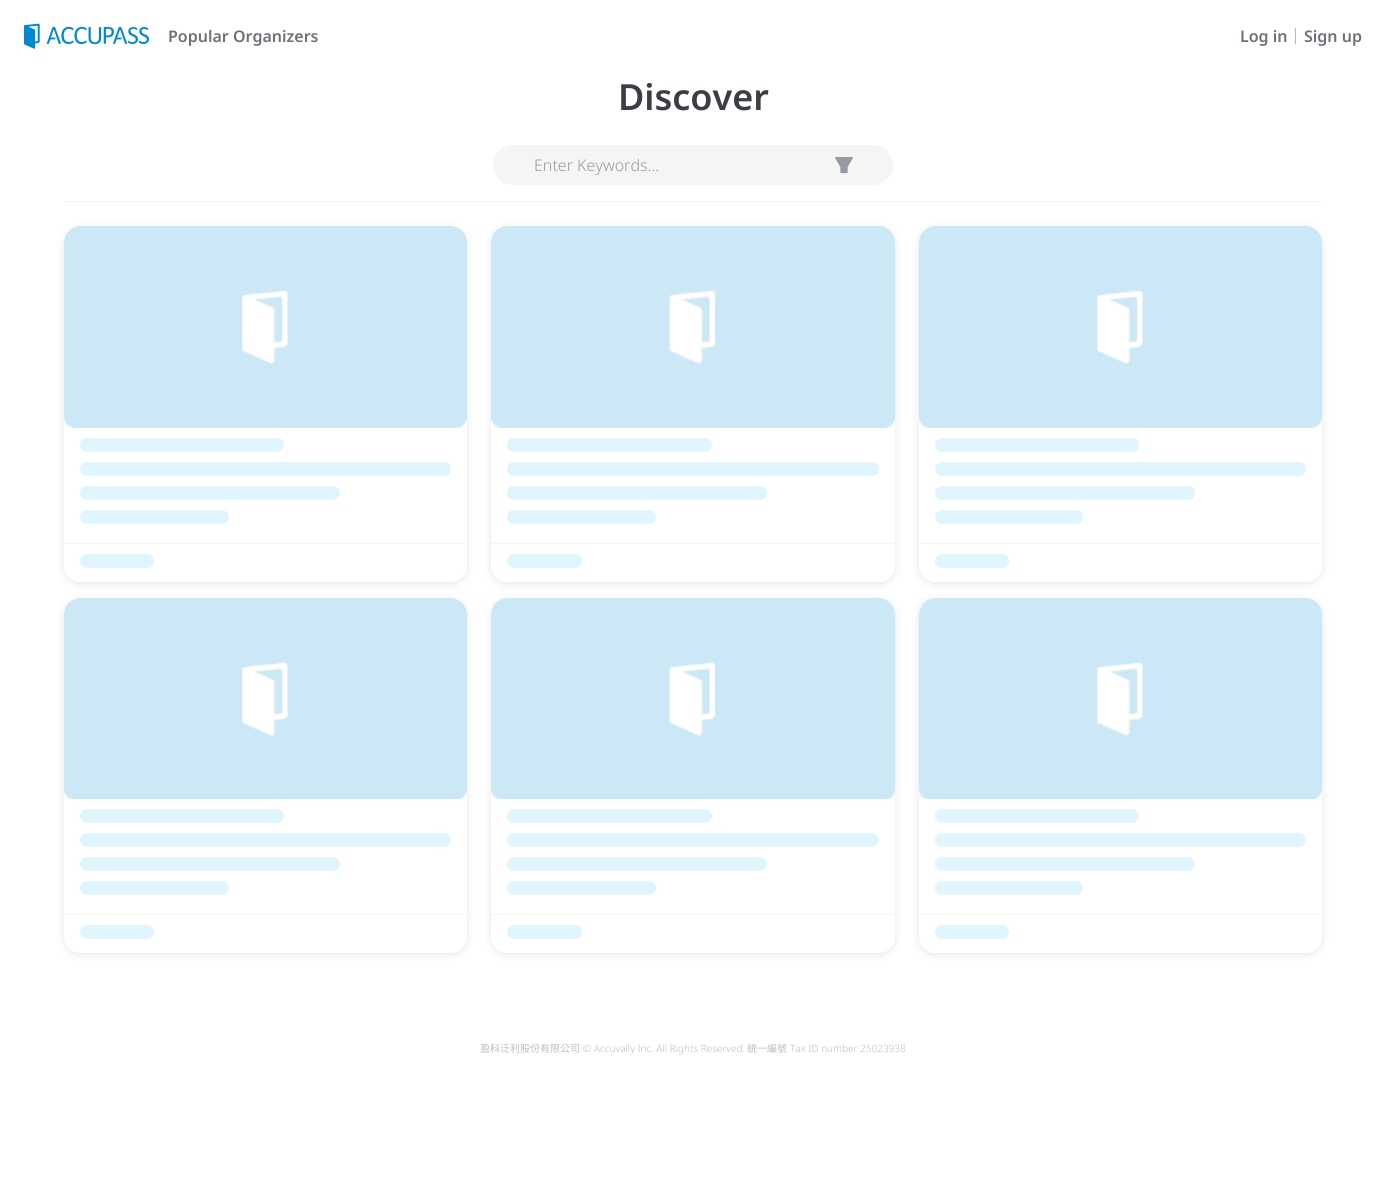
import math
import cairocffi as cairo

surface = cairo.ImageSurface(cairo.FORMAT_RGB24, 1386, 1182)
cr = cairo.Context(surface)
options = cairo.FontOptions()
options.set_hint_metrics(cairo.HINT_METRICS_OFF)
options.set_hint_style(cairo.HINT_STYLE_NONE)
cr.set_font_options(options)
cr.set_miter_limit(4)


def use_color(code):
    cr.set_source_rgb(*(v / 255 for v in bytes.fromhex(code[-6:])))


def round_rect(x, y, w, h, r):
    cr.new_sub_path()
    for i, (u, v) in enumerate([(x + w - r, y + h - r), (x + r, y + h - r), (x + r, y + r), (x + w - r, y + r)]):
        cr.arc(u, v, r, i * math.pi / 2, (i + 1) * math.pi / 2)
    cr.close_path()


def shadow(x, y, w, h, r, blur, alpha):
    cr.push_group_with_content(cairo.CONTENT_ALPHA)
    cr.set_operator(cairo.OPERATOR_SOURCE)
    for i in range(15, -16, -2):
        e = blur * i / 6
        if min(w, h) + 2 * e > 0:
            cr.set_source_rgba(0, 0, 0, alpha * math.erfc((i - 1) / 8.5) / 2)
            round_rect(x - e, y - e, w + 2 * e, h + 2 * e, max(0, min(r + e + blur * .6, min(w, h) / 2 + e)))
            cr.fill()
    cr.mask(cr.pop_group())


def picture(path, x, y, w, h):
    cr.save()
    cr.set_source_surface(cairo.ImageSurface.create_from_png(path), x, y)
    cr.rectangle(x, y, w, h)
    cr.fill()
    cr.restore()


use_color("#ffffff")
cr.paint()
picture("img1.png", 24, 23, 125, 26)
cr.select_font_face("Noto Sans SemiBold")
cr.set_font_size(16)
use_color("#6d7278")
cr.move_to(168, 42)
cr.show_text("Popular Organizers")
cr.move_to(1240, 42)
cr.show_text("Log in")
use_color("#b5bac1")
cr.rectangle(1295, 28, 1, 16)
cr.fill()
use_color("#6d7278")
cr.move_to(1304, 42)
cr.show_text("Sign up")
cr.set_font_size(36)
use_color("#3b3f45")
cr.move_to(618, 110)
cr.show_text("Discover")
use_color("#f5f5f5")
round_rect(493, 145, 400, 40, 20)
cr.fill()
cr.select_font_face("Noto Sans Light")
cr.set_font_size(16)
use_color("#959ba1")
cr.move_to(534, 171)
cr.show_text("Enter Keywords...")
picture("img2.png", 835, 157, 18, 17)
use_color("#eff4fb")
cr.rectangle(64, 201, 1258, 1)
cr.fill()
use_color("#000000")
shadow(64, 228, 403, 356, 16, 4, 0.1)
use_color("#ffffff")
round_rect(64, 226, 403, 356, 16)
cr.fill()
picture("img3.png", 64, 226, 403, 202)
use_color("#e1f5fe")
round_rect(80, 438, 204, 14, 7)
cr.fill()
round_rect(80, 462, 371, 14, 7)
cr.fill()
round_rect(80, 486, 260, 14, 7)
cr.fill()
round_rect(80, 510, 149, 14, 7)
cr.fill()
use_color("#f5f5f5")
cr.rectangle(64, 543, 403, 1)
cr.fill()
use_color("#e1f5fe")
round_rect(80, 554, 74, 14, 7)
cr.fill()
use_color("#000000")
shadow(491, 228, 404, 356, 16, 4, 0.1)
use_color("#ffffff")
round_rect(491, 226, 404, 356, 16)
cr.fill()
picture("img4.png", 491, 226, 404, 202)
use_color("#e1f5fe")
round_rect(507, 438, 205, 14, 7)
cr.fill()
round_rect(507, 462, 372, 14, 7)
cr.fill()
round_rect(507, 486, 260, 14, 7)
cr.fill()
round_rect(507, 510, 149, 14, 7)
cr.fill()
use_color("#f5f5f5")
cr.rectangle(491, 543, 404, 1)
cr.fill()
use_color("#e1f5fe")
round_rect(507, 554, 75, 14, 7)
cr.fill()
use_color("#000000")
shadow(919, 228, 403, 356, 16, 4, 0.1)
use_color("#ffffff")
round_rect(919, 226, 403, 356, 16)
cr.fill()
picture("img3.png", 919, 226, 403, 202)
use_color("#e1f5fe")
round_rect(935, 438, 204, 14, 7)
cr.fill()
round_rect(935, 462, 371, 14, 7)
cr.fill()
round_rect(935, 486, 260, 14, 7)
cr.fill()
round_rect(935, 510, 148, 14, 7)
cr.fill()
use_color("#f5f5f5")
cr.rectangle(919, 543, 403, 1)
cr.fill()
use_color("#e1f5fe")
round_rect(935, 554, 74, 14, 7)
cr.fill()
use_color("#000000")
shadow(64, 600, 403, 355, 16, 4, 0.1)
use_color("#ffffff")
round_rect(64, 598, 403, 355, 16)
cr.fill()
picture("img5.png", 64, 598, 403, 201)
use_color("#e1f5fe")
round_rect(80, 809, 204, 14, 7)
cr.fill()
round_rect(80, 833, 371, 14, 7)
cr.fill()
round_rect(80, 857, 260, 14, 7)
cr.fill()
round_rect(80, 881, 149, 14, 7)
cr.fill()
use_color("#f5f5f5")
cr.rectangle(64, 914, 403, 1)
cr.fill()
use_color("#e1f5fe")
round_rect(80, 925, 74, 14, 7)
cr.fill()
use_color("#000000")
shadow(491, 600, 404, 355, 16, 4, 0.1)
use_color("#ffffff")
round_rect(491, 598, 404, 355, 16)
cr.fill()
picture("img6.png", 491, 598, 404, 201)
use_color("#e1f5fe")
round_rect(507, 809, 205, 14, 7)
cr.fill()
round_rect(507, 833, 372, 14, 7)
cr.fill()
round_rect(507, 857, 260, 14, 7)
cr.fill()
round_rect(507, 881, 149, 14, 7)
cr.fill()
use_color("#f5f5f5")
cr.rectangle(491, 914, 404, 1)
cr.fill()
use_color("#e1f5fe")
round_rect(507, 925, 75, 14, 7)
cr.fill()
use_color("#000000")
shadow(919, 600, 403, 355, 16, 4, 0.1)
use_color("#ffffff")
round_rect(919, 598, 403, 355, 16)
cr.fill()
picture("img5.png", 919, 598, 403, 201)
use_color("#e1f5fe")
round_rect(935, 809, 204, 14, 7)
cr.fill()
round_rect(935, 833, 371, 14, 7)
cr.fill()
round_rect(935, 857, 260, 14, 7)
cr.fill()
round_rect(935, 881, 148, 14, 7)
cr.fill()
use_color("#f5f5f5")
cr.rectangle(919, 914, 403, 1)
cr.fill()
use_color("#e1f5fe")
round_rect(935, 925, 74, 14, 7)
cr.fill()
cr.select_font_face("Noto Sans CJK TC")
cr.set_font_size(10)
use_color("#bdbdbd")
cr.move_to(480, 1052)
cr.show_text("盈科泛利股份有限公司")
cr.select_font_face("Noto Sans Light")
cr.move_to(583, 1052)
cr.show_text("© Accuvally Inc. All Rights Reserved.")
cr.select_font_face("Noto Sans CJK TC")
cr.move_to(747, 1052)
cr.show_text("統一編號")
cr.select_font_face("Noto Sans Light")
cr.move_to(790, 1052)
cr.show_text("Tax ID number 25023938")
surface.write_to_png("result.png")
